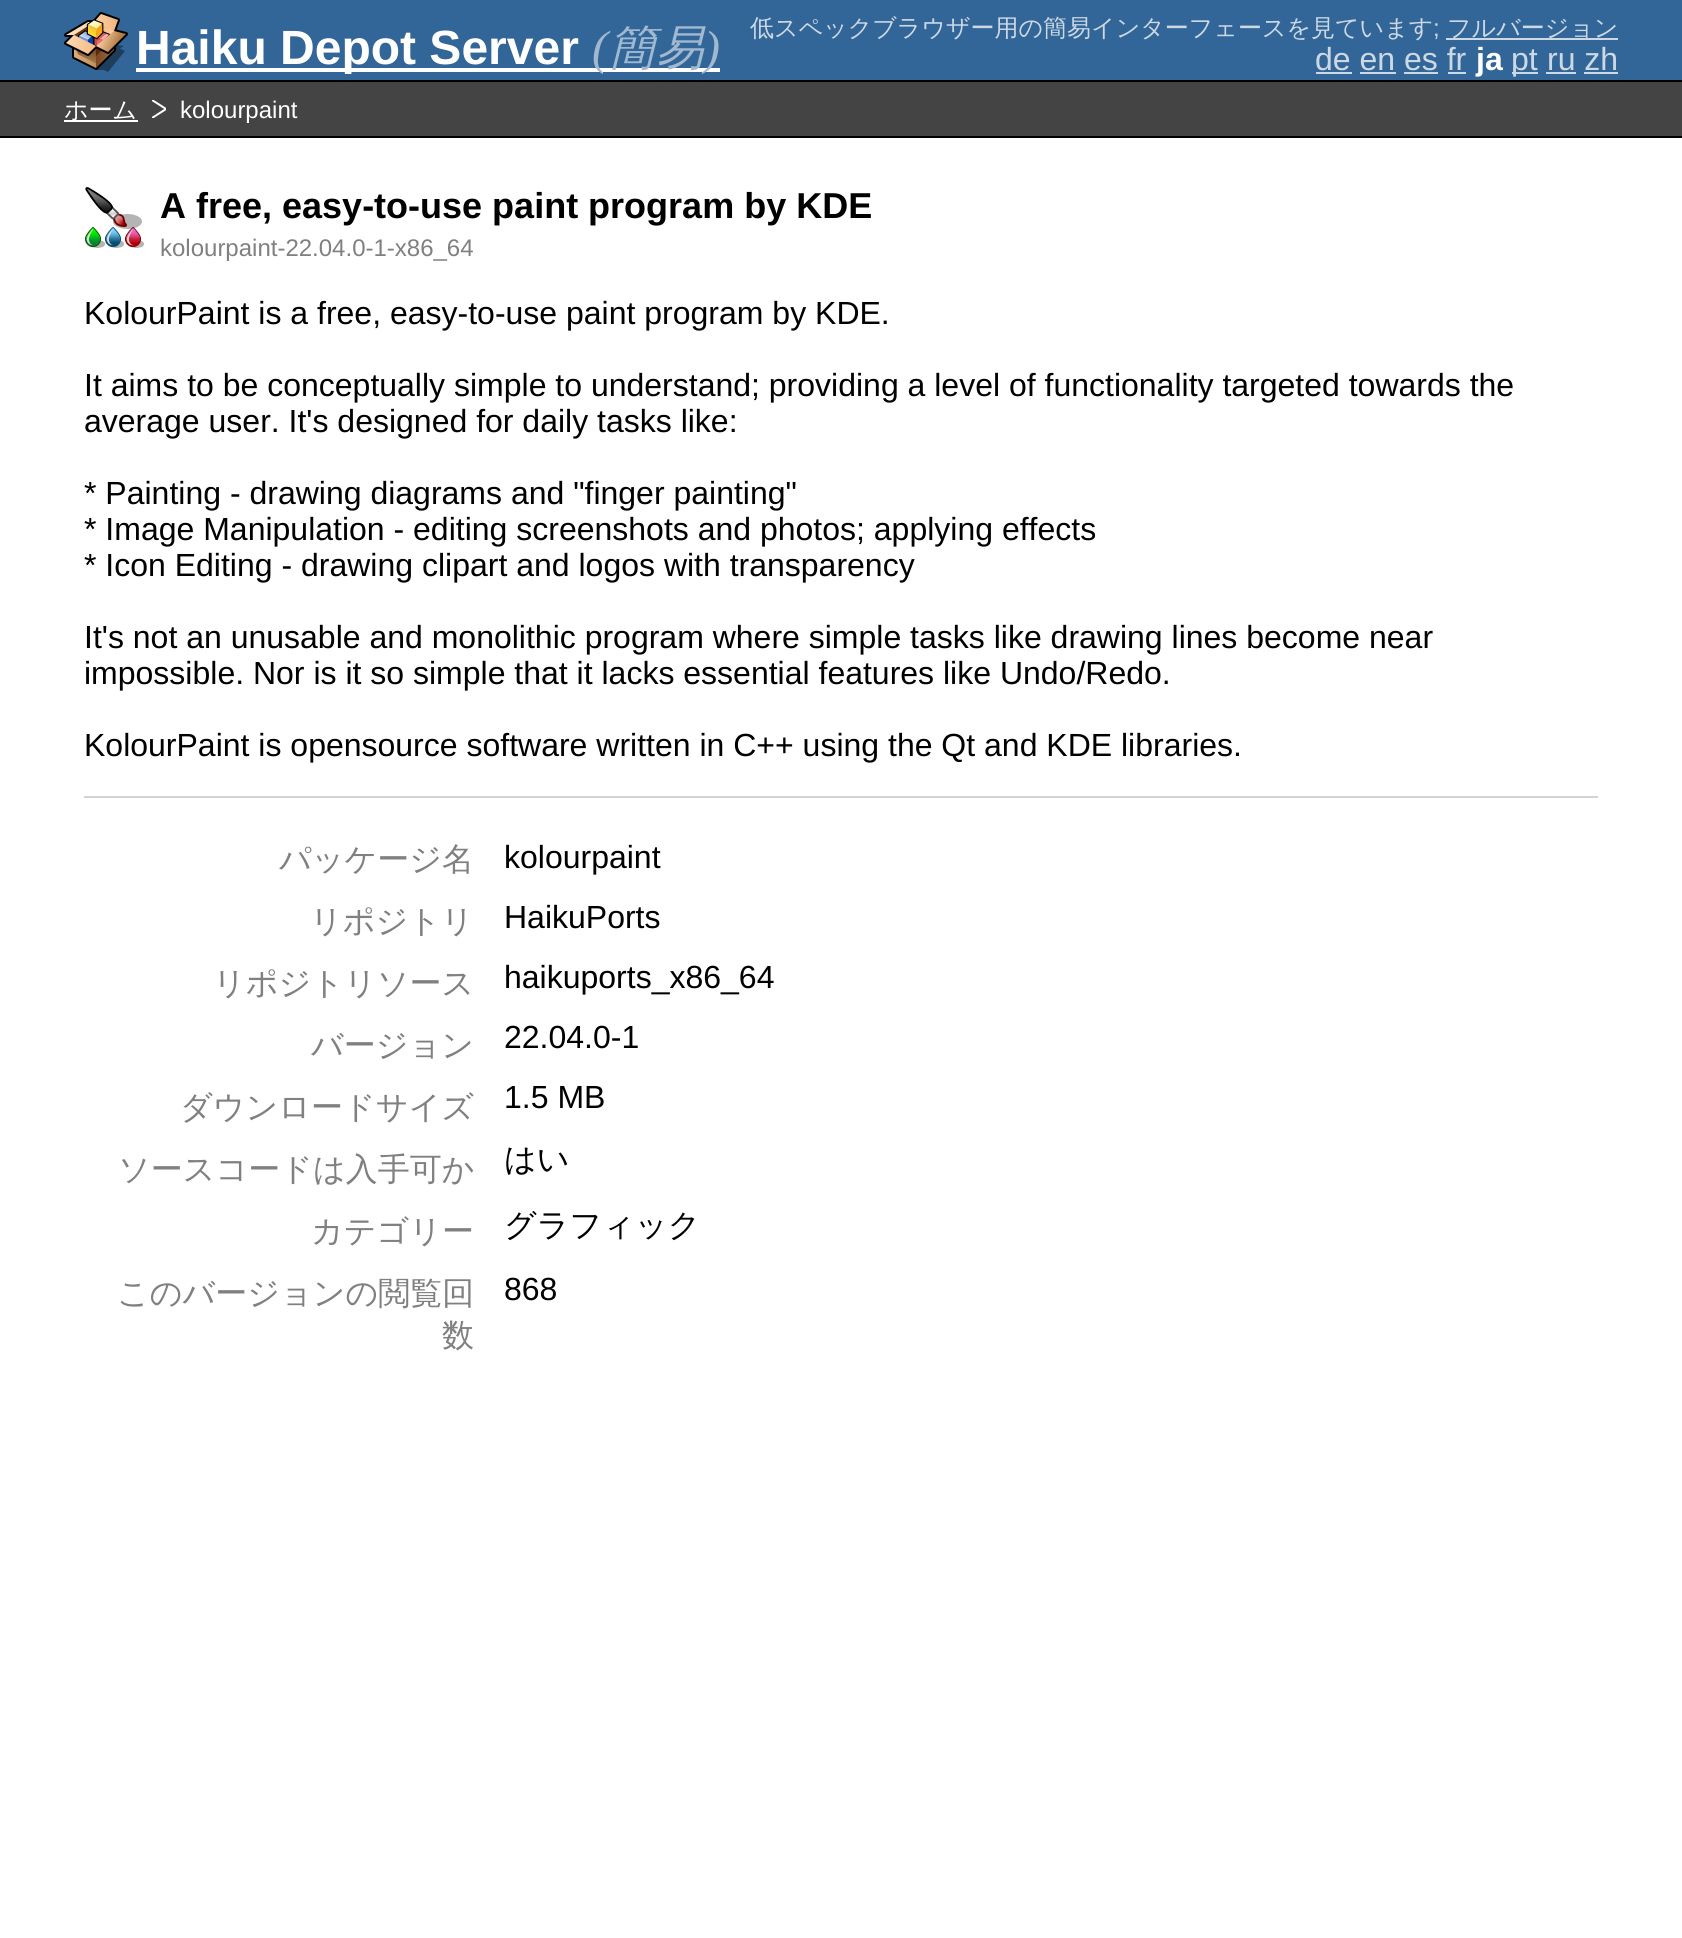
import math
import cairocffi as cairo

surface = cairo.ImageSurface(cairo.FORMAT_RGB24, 1682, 1938)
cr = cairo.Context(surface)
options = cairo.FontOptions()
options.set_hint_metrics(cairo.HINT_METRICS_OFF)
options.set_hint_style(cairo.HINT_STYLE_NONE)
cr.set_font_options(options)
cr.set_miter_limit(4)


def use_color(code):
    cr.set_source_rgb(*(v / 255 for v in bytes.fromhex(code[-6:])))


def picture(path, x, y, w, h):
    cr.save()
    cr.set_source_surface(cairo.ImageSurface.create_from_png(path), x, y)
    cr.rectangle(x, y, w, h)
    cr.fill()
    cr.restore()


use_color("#ffffff")
cr.paint()
use_color("#336698")
cr.rectangle(0, 0, 1682, 80)
cr.fill()
use_color("#000000")
cr.rectangle(0, 80, 1682, 2)
cr.fill()
picture("img1.png", 64, 12, 64, 60)
use_color("#ffffff")
cr.rectangle(136, 68, 584, 4)
cr.fill()
cr.select_font_face("Liberation Sans", cairo.FONT_SLANT_NORMAL, cairo.FONT_WEIGHT_BOLD)
cr.set_font_size(48)
cr.move_to(136, 64)
cr.show_text("Haiku Depot Server")
cr.select_font_face("Liberation Serif", cairo.FONT_SLANT_ITALIC)
use_color("#a1b9d0")
cr.move_to(592, 64)
cr.show_text("(")
cr.select_font_face("WenQuanYi Zen Hei Medium", cairo.FONT_SLANT_ITALIC)
cr.move_to(608, 64)
cr.show_text("簡易")
cr.select_font_face("Liberation Serif", cairo.FONT_SLANT_ITALIC)
cr.move_to(704, 64)
cr.show_text(")")
cr.select_font_face("WenQuanYi Zen Hei Medium")
cr.set_font_size(24)
use_color("#ccd9e5")
cr.move_to(750, 36)
cr.show_text("低スペックブラウザー用の簡易インターフェースを見ています")
cr.select_font_face("Liberation Sans")
cr.move_to(1433, 36)
cr.show_text(";")
cr.rectangle(1446, 38, 172, 2)
cr.fill()
cr.select_font_face("WenQuanYi Zen Hei Medium")
cr.move_to(1447, 36)
cr.show_text("フルバージョン")
cr.select_font_face("Liberation Sans")
cr.set_font_size(32)
cr.move_to(1315, 70)
cr.show_text("de en es fr")
cr.rectangle(1316, 72, 36, 2)
cr.fill()
cr.rectangle(1360, 72, 36, 2)
cr.fill()
cr.rectangle(1404, 72, 34, 2)
cr.fill()
cr.rectangle(1448, 72, 18, 2)
cr.fill()
cr.select_font_face("Liberation Sans", cairo.FONT_SLANT_NORMAL, cairo.FONT_WEIGHT_BOLD)
use_color("#ffffff")
cr.move_to(1476, 70)
cr.show_text("ja")
use_color("#ccd9e5")
cr.rectangle(1512, 72, 26, 2)
cr.fill()
cr.select_font_face("Liberation Sans")
cr.move_to(1511, 70)
cr.show_text("pt")
cr.rectangle(1546, 72, 30, 2)
cr.fill()
cr.move_to(1547, 70)
cr.show_text("ru zh")
cr.rectangle(1584, 72, 34, 2)
cr.fill()
use_color("#444444")
cr.rectangle(0, 82, 1682, 54)
cr.fill()
use_color("#000000")
cr.rectangle(0, 136, 1682, 2)
cr.fill()
use_color("#ffffff")
cr.rectangle(64, 120, 74, 2)
cr.fill()
cr.select_font_face("WenQuanYi Zen Hei Medium")
cr.set_font_size(24)
cr.move_to(64, 118)
cr.show_text("ホーム")
cr.select_font_face("Liberation Sans")
cr.move_to(180, 118)
cr.show_text("kolourpaint")
cr.save()
cr.rectangle(152, 100, 14, 18)
cr.clip()
cr.new_path()
cr.move_to(152, 118)
cr.line_to(166, 109)
cr.line_to(152, 100)
cr.stroke()
cr.restore()
picture("img2.png", 85, 187, 59, 61)
cr.select_font_face("Liberation Sans", cairo.FONT_SLANT_NORMAL, cairo.FONT_WEIGHT_BOLD)
cr.set_font_size(36)
use_color("#000000")
cr.move_to(160, 218)
cr.show_text("A free, easy-to-use paint program by KDE")
cr.select_font_face("Liberation Sans")
cr.set_font_size(24)
use_color("#808080")
cr.move_to(160, 256)
cr.show_text("kolourpaint-22.04.0-1-x86_64")
cr.set_font_size(32)
use_color("#000000")
cr.move_to(84, 324)
cr.show_text("KolourPaint is a free, easy-to-use paint program by KDE.")
cr.move_to(84, 396)
cr.show_text("It aims to be conceptually simple to understand; providing a level of functionality targeted towards the")
cr.move_to(84, 432)
cr.show_text("average user. It's designed for daily tasks like:")
cr.move_to(84, 504)
cr.show_text("* Painting - drawing diagrams and \"finger painting\"")
cr.move_to(84, 540)
cr.show_text("* Image Manipulation - editing screenshots and photos; applying effects")
cr.move_to(84, 576)
cr.show_text("* Icon Editing - drawing clipart and logos with transparency")
cr.move_to(84, 648)
cr.show_text("It's not an unusable and monolithic program where simple tasks like drawing lines become near")
cr.move_to(84, 684)
cr.show_text("impossible. Nor is it so simple that it lacks essential features like Undo/Redo.")
cr.move_to(84, 756)
cr.show_text("KolourPaint is opensource software written in C++ using the Qt and KDE libraries.")
use_color("#d3d3d3")
cr.rectangle(84, 796, 1514, 2)
cr.fill()
cr.select_font_face("WenQuanYi Zen Hei Medium")
use_color("#808080")
cr.move_to(279, 870)
cr.show_text("パッケージ名")
cr.select_font_face("Liberation Sans")
use_color("#000000")
cr.move_to(504, 868)
cr.show_text("kolourpaint")
cr.select_font_face("WenQuanYi Zen Hei Medium")
use_color("#808080")
cr.move_to(310, 932)
cr.show_text("リポジトリ")
cr.select_font_face("Liberation Sans")
use_color("#000000")
cr.move_to(504, 928)
cr.show_text("HaikuPorts")
cr.select_font_face("WenQuanYi Zen Hei Medium")
use_color("#808080")
cr.move_to(213, 994)
cr.show_text("リポジトリソース")
cr.select_font_face("Liberation Sans")
use_color("#000000")
cr.move_to(504, 988)
cr.show_text("haikuports_x86_64")
cr.select_font_face("WenQuanYi Zen Hei Medium")
use_color("#808080")
cr.move_to(311, 1056)
cr.show_text("バージョン")
cr.select_font_face("Liberation Sans")
use_color("#000000")
cr.move_to(504, 1048)
cr.show_text("22.04.0-1")
cr.select_font_face("WenQuanYi Zen Hei Medium")
use_color("#808080")
cr.move_to(180, 1118)
cr.show_text("ダウンロードサイズ")
cr.select_font_face("Liberation Sans")
use_color("#000000")
cr.move_to(504, 1108)
cr.show_text("1.5 MB")
cr.select_font_face("WenQuanYi Zen Hei Medium")
use_color("#808080")
cr.move_to(118, 1180)
cr.show_text("ソースコードは入手可か")
use_color("#000000")
cr.move_to(504, 1170)
cr.show_text("はい")
use_color("#808080")
cr.move_to(311, 1242)
cr.show_text("カテゴリー")
use_color("#000000")
cr.move_to(504, 1236)
cr.show_text("グラフィック")
use_color("#808080")
cr.move_to(117, 1304)
cr.show_text("このバージョンの閲覧回")
cr.move_to(442, 1346)
cr.show_text("数")
cr.select_font_face("Liberation Sans")
use_color("#000000")
cr.move_to(504, 1300)
cr.show_text("868")
surface.write_to_png("result.png")
